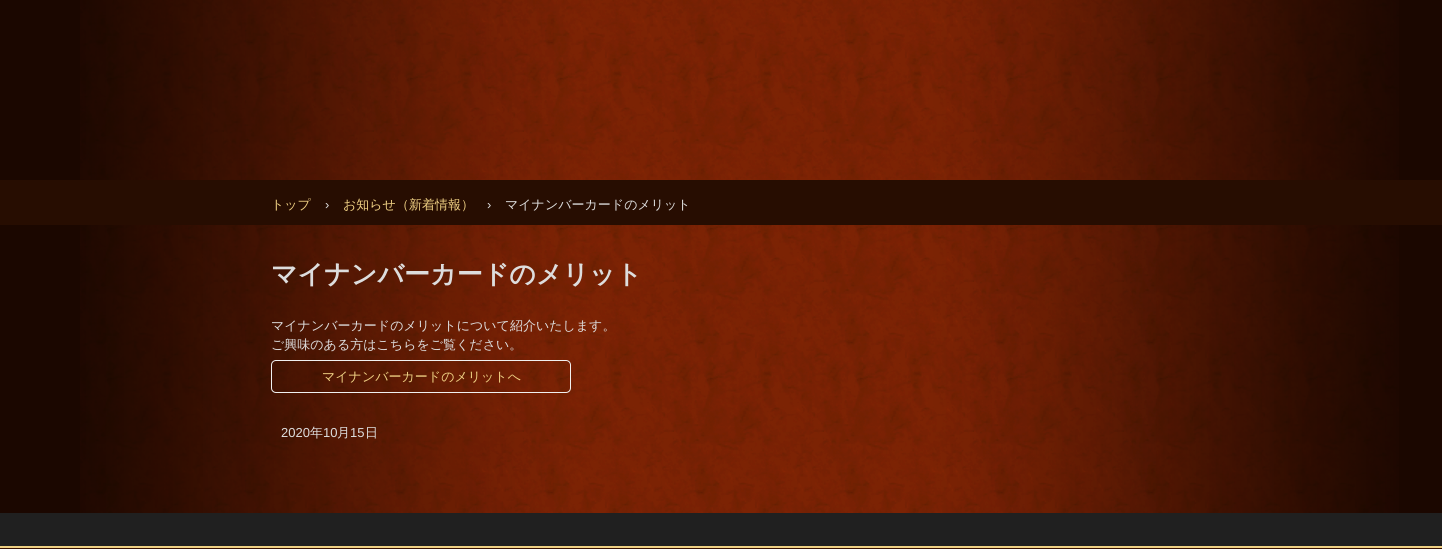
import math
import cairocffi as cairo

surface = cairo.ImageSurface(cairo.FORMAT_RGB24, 1442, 549)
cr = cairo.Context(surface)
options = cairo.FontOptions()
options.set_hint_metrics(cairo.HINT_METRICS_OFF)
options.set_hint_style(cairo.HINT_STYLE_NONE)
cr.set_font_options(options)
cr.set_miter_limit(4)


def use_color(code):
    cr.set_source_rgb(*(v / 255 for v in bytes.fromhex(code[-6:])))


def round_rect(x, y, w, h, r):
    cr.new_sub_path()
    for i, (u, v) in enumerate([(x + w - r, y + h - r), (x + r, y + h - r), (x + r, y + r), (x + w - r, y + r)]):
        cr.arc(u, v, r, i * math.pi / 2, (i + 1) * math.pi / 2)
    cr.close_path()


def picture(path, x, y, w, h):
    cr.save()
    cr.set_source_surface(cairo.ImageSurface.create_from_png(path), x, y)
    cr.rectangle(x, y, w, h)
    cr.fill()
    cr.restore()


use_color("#1b0700")
cr.paint()
picture("img1.png", 80, 0, 1319, 513)
use_color("#270d01")
cr.rectangle(0, 180, 1442, 45)
cr.fill()
cr.select_font_face("WenQuanYi Zen Hei Medium")
cr.set_font_size(13)
use_color("#efd083")
cr.move_to(271, 209)
cr.show_text("トップ")
cr.select_font_face("Liberation Sans")
use_color("#dddddd")
cr.move_to(325, 209)
cr.show_text("›")
cr.select_font_face("WenQuanYi Zen Hei Medium")
use_color("#efd083")
cr.move_to(343, 209)
cr.show_text("お知らせ（新着情報）")
cr.select_font_face("Liberation Sans")
use_color("#dddddd")
cr.move_to(487, 209)
cr.show_text("›")
cr.select_font_face("WenQuanYi Zen Hei Medium")
cr.move_to(505, 209)
cr.show_text("マイナンバーカードのメリット")
cr.select_font_face("WenQuanYi Zen Hei", cairo.FONT_SLANT_NORMAL, cairo.FONT_WEIGHT_BOLD)
cr.set_font_size(26)
cr.move_to(271, 283)
cr.show_text("マイナンバーカードのメリット")
cr.select_font_face("WenQuanYi Zen Hei Medium")
cr.set_font_size(13)
cr.move_to(271, 330)
cr.show_text("マイナンバーカードのメリットについて紹介いたします。")
cr.move_to(271, 349)
cr.show_text("ご興味のある方はこちらをご覧ください。")
round_rect(271.5, 360.5, 299, 32, 4.5)
use_color("#f0f0f0")
cr.set_line_width(1)
cr.stroke()
use_color("#efd083")
cr.move_to(322, 381)
cr.show_text("マイナンバーカードのメリットへ")
cr.select_font_face("Liberation Sans")
use_color("#dddddd")
cr.move_to(281, 437)
cr.show_text("2020")
cr.select_font_face("WenQuanYi Zen Hei Medium")
cr.move_to(310, 437)
cr.show_text("年")
cr.select_font_face("Liberation Sans")
cr.move_to(323, 437)
cr.show_text("10")
cr.select_font_face("WenQuanYi Zen Hei Medium")
cr.move_to(337, 437)
cr.show_text("月")
cr.select_font_face("Liberation Sans")
cr.move_to(350, 437)
cr.show_text("15")
cr.select_font_face("WenQuanYi Zen Hei Medium")
cr.move_to(365, 437)
cr.show_text("日")
use_color("#202020")
cr.rectangle(0, 513, 1442, 33)
cr.fill()
picture("img2.png", 0, 548, 1442, 1)
use_color("#efd083")
cr.rectangle(0, 546, 1442, 2)
cr.fill()
surface.write_to_png("result.png")
